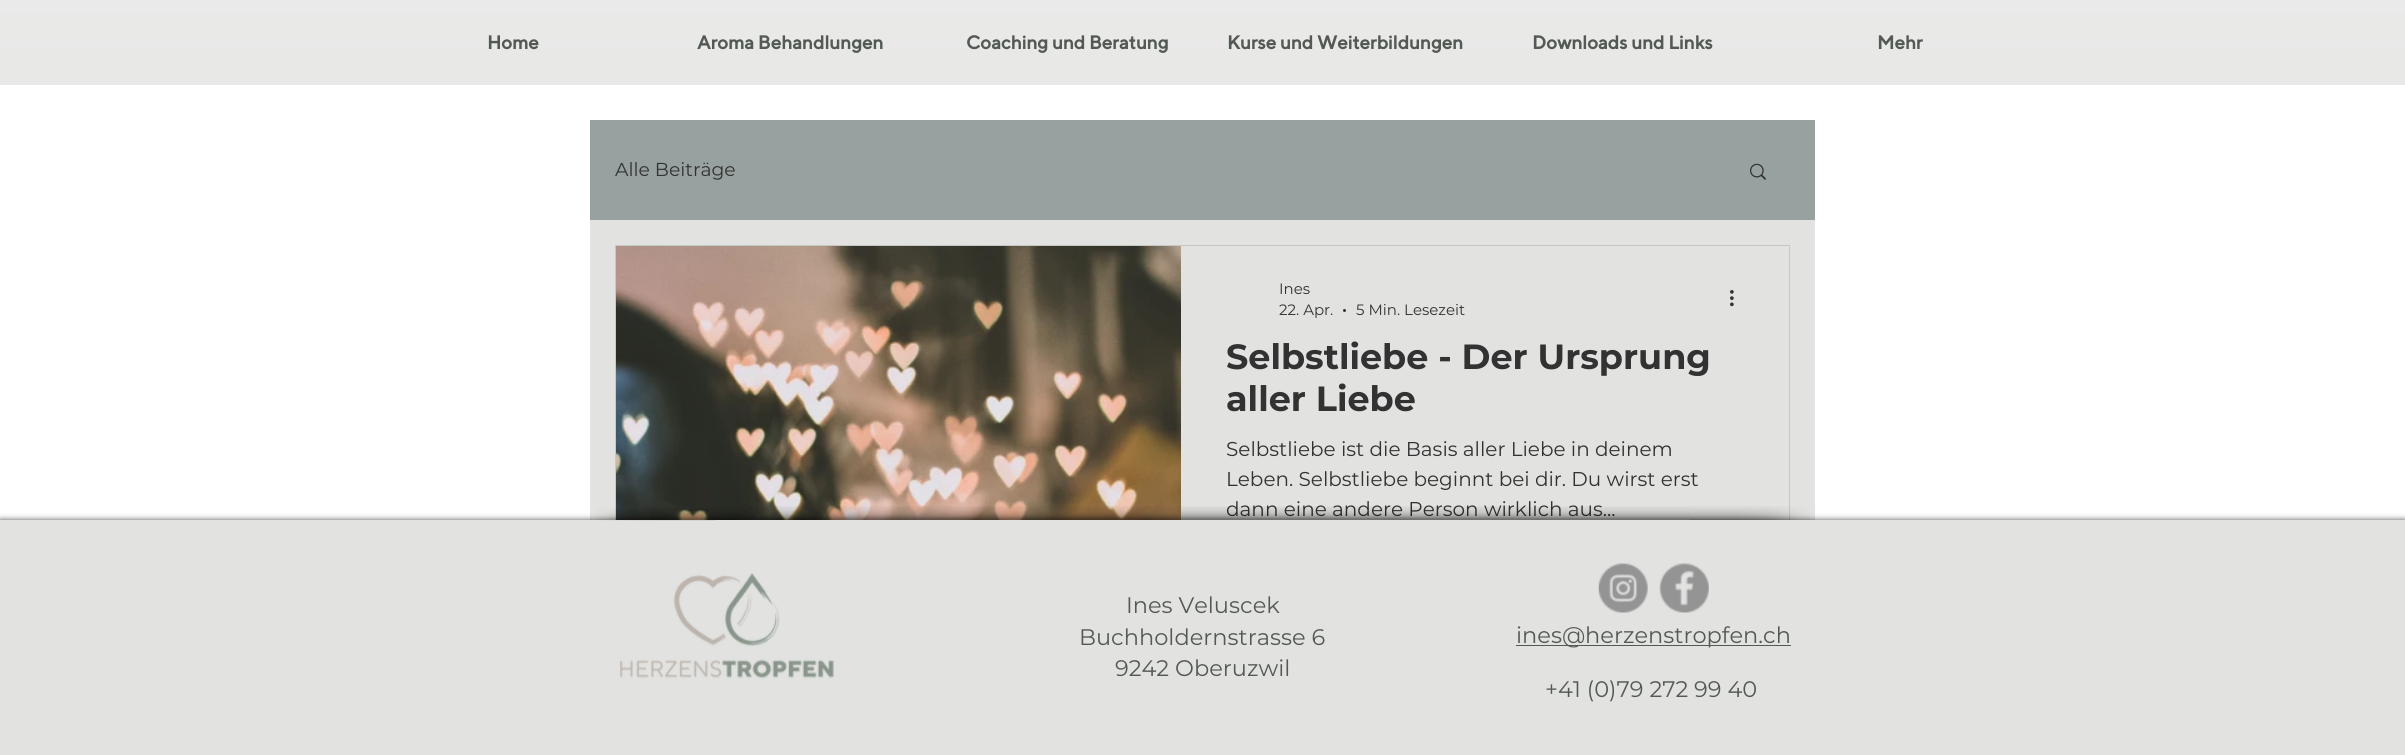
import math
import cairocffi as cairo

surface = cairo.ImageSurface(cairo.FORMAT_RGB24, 2405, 755)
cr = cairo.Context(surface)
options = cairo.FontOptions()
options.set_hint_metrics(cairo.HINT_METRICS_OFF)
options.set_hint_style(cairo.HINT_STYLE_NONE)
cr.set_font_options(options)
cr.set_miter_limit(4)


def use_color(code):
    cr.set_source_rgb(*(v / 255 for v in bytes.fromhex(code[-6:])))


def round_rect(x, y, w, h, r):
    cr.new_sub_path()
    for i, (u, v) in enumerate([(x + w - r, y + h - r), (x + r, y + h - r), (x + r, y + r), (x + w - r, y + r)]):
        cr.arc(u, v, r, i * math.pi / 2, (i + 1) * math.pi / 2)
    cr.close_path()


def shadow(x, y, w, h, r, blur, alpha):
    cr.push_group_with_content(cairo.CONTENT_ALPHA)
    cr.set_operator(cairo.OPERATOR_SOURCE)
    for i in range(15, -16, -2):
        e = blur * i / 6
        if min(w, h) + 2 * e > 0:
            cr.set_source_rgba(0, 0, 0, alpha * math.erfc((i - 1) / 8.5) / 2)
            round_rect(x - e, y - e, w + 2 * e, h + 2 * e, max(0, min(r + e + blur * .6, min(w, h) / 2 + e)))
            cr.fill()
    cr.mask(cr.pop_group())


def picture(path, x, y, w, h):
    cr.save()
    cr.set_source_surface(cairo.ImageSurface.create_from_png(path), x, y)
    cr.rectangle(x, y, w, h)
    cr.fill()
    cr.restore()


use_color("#ffffff")
cr.paint()
use_color("#e2e3e1")
cr.rectangle(0, 0, 2405, 85)
cr.fill()
picture("img1.png", 0, 0, 2405, 85)
cr.select_font_face("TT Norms", cairo.FONT_SLANT_NORMAL, cairo.FONT_WEIGHT_BOLD)
cr.set_font_size(18.75)
use_color("#535953")
cr.move_to(487, 49)
cr.show_text("Home")
cr.move_to(697, 49)
cr.show_text("Aroma Behandlungen")
cr.move_to(966, 49)
cr.show_text("Coaching und Beratung")
cr.move_to(1227, 49)
cr.show_text("Kurse und Weiterbildungen")
cr.move_to(1532, 49)
cr.show_text("Downloads und Links")
cr.move_to(1877, 49)
cr.show_text("Mehr")
use_color("#e2e3e1")
cr.rectangle(590, 220, 1225, 300)
cr.fill()
use_color("#97a2a0")
cr.rectangle(590, 120, 1225, 100)
cr.fill()
cr.select_font_face("Montserrat")
use_color("#313231")
cr.move_to(615, 176)
cr.show_text("Alle Beiträge")
picture("img2.png", 1750, 163, 16, 17)
cr.rectangle(615.5, 245.5, 1174, 425)
use_color("#c5c7c3")
cr.set_line_width(1)
cr.stroke()
picture("img3.png", 616, 246, 565, 274)
cr.set_font_size(15)
use_color("#313231")
cr.move_to(1279, 294)
cr.show_text("Ines")
cr.move_to(1279, 315)
cr.show_text("22. Apr.")
cr.new_path()
cr.arc(1344.5, 310.5, 1.5, 0, 2 * math.pi)
cr.fill()
cr.move_to(1356, 315)
cr.show_text("5 Min. Lesezeit")
picture("img4.png", 1730, 290, 4, 17)
cr.select_font_face("Montserrat", cairo.FONT_SLANT_NORMAL, cairo.FONT_WEIGHT_BOLD)
cr.set_font_size(35)
cr.move_to(1226, 369)
cr.show_text("Selbstliebe - Der Ursprung")
cr.move_to(1226, 411)
cr.show_text("aller Liebe")
cr.select_font_face("Montserrat")
cr.set_font_size(20)
cr.move_to(1226, 456)
cr.show_text("Selbstliebe ist die Basis aller Liebe in deinem")
cr.move_to(1226, 486)
cr.show_text("Leben. Selbstliebe beginnt bei dir. Du wirst erst")
cr.move_to(1226, 516)
cr.show_text("dann eine andere Person wirklich aus...")
use_color("#000000")
shadow(0, 520, 2405, 235, 0, 3, 0.7)
use_color("#e2e3e1")
cr.rectangle(0, 520, 2405, 235)
cr.fill()
picture("img5.png", 596, 508, 119, 13)
picture("img6.png", 715, 506, 975, 14)
picture("img7.png", 1690, 506, 120, 14)
picture("img8.png", 620, 573, 214, 106)
cr.set_font_size(22.5)
use_color("#535953")
cr.move_to(1126, 613)
cr.show_text("Ines Veluscek")
cr.move_to(1079, 645)
cr.show_text("Buchholdernstrasse 6")
cr.move_to(1115, 676)
cr.show_text("9242 Oberuzwil")
picture("img9.png", 1598, 563, 50, 50)
picture("img10.png", 1659, 563, 50, 50)
cr.rectangle(1516, 645, 275, 1)
cr.fill()
cr.move_to(1516, 643)
cr.show_text("ines@herzenstropfen.ch")
cr.move_to(1545, 697)
cr.show_text("+41 (0)79 272 99 40")
surface.write_to_png("result.png")
